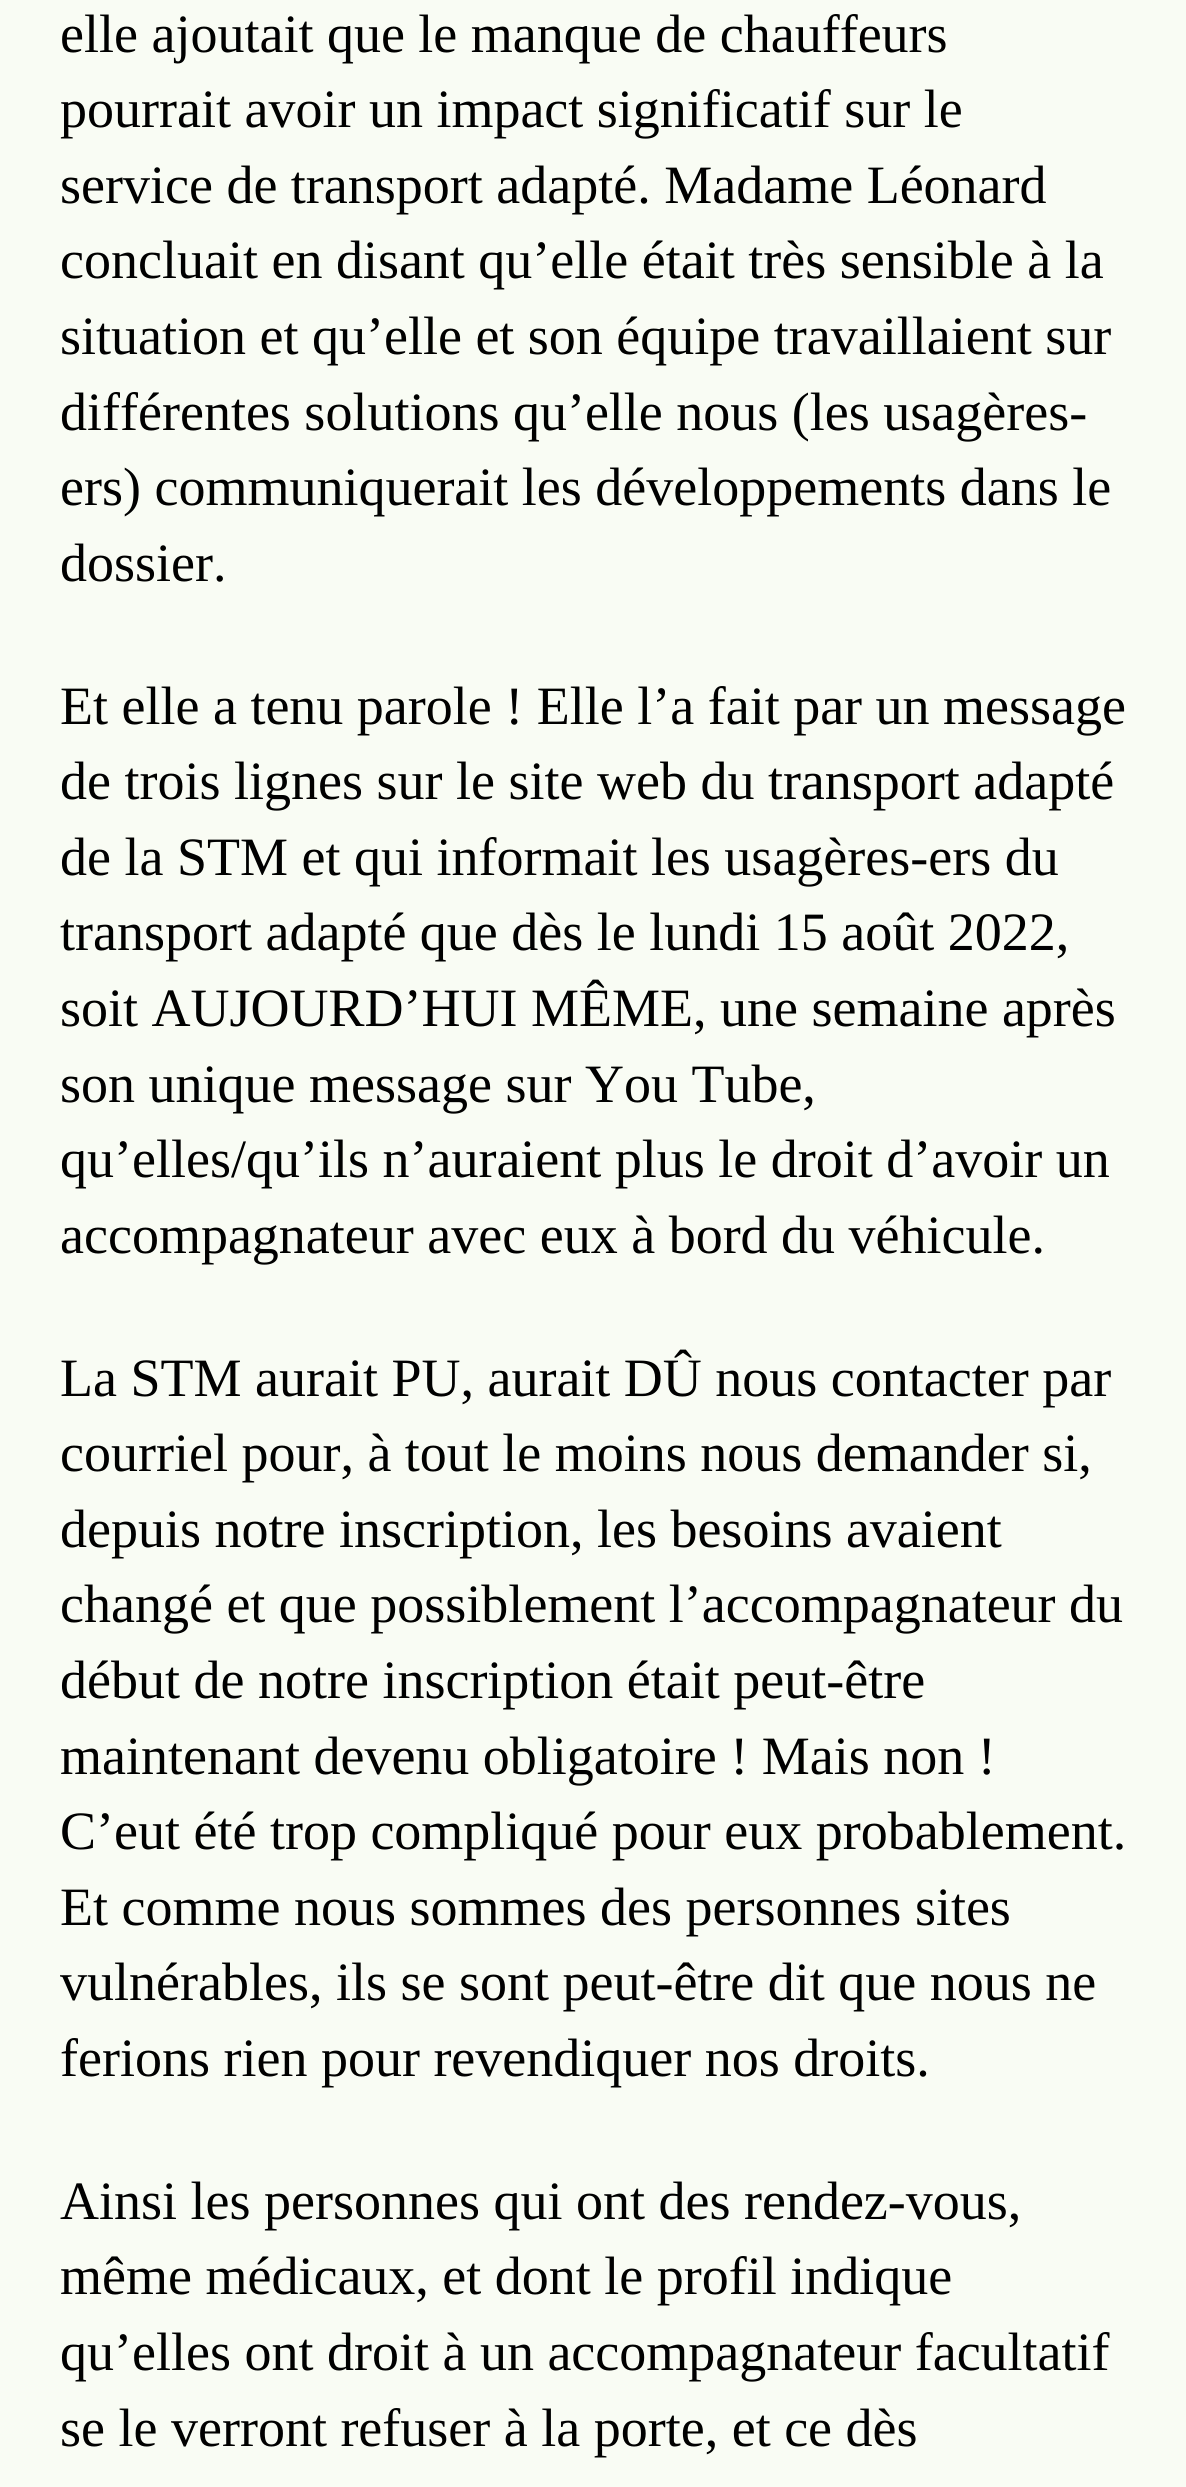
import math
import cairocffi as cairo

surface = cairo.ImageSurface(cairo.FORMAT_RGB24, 1186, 2487)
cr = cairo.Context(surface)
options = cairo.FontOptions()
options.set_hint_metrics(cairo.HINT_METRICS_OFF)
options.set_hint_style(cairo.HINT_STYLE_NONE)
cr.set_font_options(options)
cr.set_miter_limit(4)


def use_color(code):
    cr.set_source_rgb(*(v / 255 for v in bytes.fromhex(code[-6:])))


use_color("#f9fcf4")
cr.paint()
cr.select_font_face("Liberation Serif")
cr.set_font_size(54)
use_color("#000000")
cr.move_to(60, 52)
cr.show_text("elle ajoutait que le manque de chauffeurs")
cr.move_to(60, 127)
cr.show_text("pourrait avoir un impact significatif sur le")
cr.move_to(60, 203)
cr.show_text("service de transport adapté. Madame Léonard")
cr.move_to(60, 278)
cr.show_text("concluait en disant qu’elle était très sensible à la")
cr.move_to(60, 354)
cr.show_text("situation et qu’elle et son équipe travaillaient sur")
cr.move_to(60, 430)
cr.show_text("différentes solutions qu’elle nous (les usagères-")
cr.move_to(60, 505)
cr.show_text("ers) communiquerait les développements dans le")
cr.move_to(60, 581)
cr.show_text("dossier.")
cr.move_to(60, 724)
cr.show_text("Et elle a tenu parole ! Elle l’a fait par un message")
cr.move_to(60, 799)
cr.show_text("de trois lignes sur le site web du transport adapté")
cr.move_to(60, 875)
cr.show_text("de la STM et qui informait les usagères-ers du")
cr.move_to(60, 950)
cr.show_text("transport adapté que dès le lundi 15 août 2022,")
cr.move_to(60, 1026)
cr.show_text("soit AUJOURD’HUI MÊME, une semaine après")
cr.move_to(60, 1102)
cr.show_text("son unique message sur You Tube,")
cr.move_to(60, 1177)
cr.show_text("qu’elles/qu’ils n’auraient plus le droit d’avoir un")
cr.move_to(60, 1253)
cr.show_text("accompagnateur avec eux à bord du véhicule.")
cr.move_to(60, 1396)
cr.show_text("La STM aurait PU, aurait DÛ nous contacter par")
cr.move_to(60, 1471)
cr.show_text("courriel pour, à tout le moins nous demander si,")
cr.move_to(60, 1547)
cr.show_text("depuis notre inscription, les besoins avaient")
cr.move_to(60, 1622)
cr.show_text("changé et que possiblement l’accompagnateur du")
cr.move_to(60, 1698)
cr.show_text("début de notre inscription était peut-être")
cr.move_to(60, 1774)
cr.show_text("maintenant devenu obligatoire ! Mais non !")
cr.move_to(60, 1849)
cr.show_text("C’eut été trop compliqué pour eux probablement.")
cr.move_to(60, 1925)
cr.show_text("Et comme nous sommes des personnes sites")
cr.move_to(60, 2000)
cr.show_text("vulnérables, ils se sont peut-être dit que nous ne")
cr.move_to(60, 2076)
cr.show_text("ferions rien pour revendiquer nos droits.")
cr.move_to(60, 2219)
cr.show_text("Ainsi les personnes qui ont des rendez-vous,")
cr.move_to(60, 2294)
cr.show_text("même médicaux, et dont le profil indique")
cr.move_to(60, 2370)
cr.show_text("qu’elles ont droit à un accompagnateur facultatif")
cr.move_to(60, 2446)
cr.show_text("se le verront refuser à la porte, et ce dès")
surface.write_to_png("result.png")
